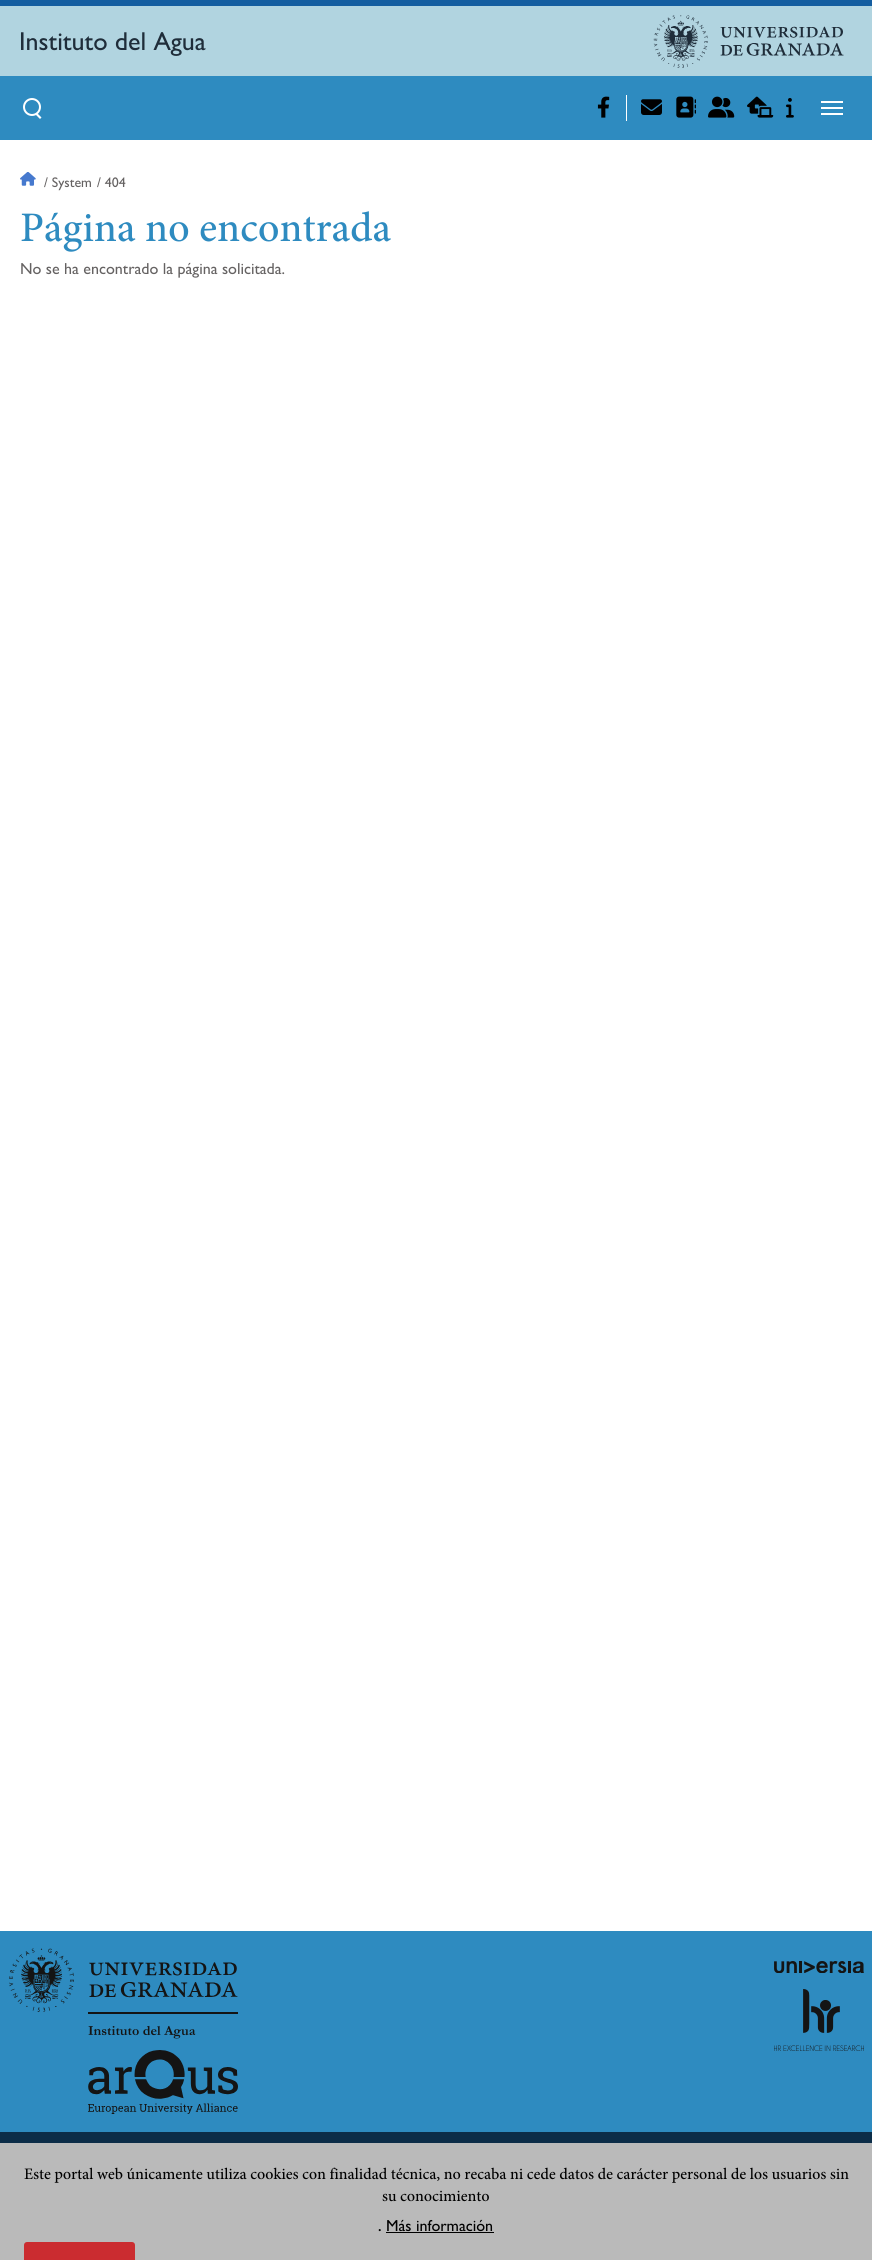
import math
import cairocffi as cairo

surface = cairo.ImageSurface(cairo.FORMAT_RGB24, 872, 2260)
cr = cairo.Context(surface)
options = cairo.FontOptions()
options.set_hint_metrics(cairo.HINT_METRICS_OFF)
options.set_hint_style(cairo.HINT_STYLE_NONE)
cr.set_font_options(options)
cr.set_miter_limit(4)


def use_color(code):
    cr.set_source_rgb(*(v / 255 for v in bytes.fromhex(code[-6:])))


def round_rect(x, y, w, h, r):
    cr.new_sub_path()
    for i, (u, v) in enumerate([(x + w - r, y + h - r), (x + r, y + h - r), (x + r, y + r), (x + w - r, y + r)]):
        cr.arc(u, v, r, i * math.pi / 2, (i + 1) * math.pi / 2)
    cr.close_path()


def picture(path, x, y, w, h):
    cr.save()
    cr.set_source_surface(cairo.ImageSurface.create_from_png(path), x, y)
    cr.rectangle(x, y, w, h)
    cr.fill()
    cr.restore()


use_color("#ffffff")
cr.paint()
use_color("#145da0")
cr.rectangle(0, 0, 872, 6)
cr.fill()
use_color("#2e8bc0")
cr.rectangle(0, 76, 872, 64)
cr.fill()
use_color("#b1d4e0")
cr.rectangle(0, 6, 872, 70)
cr.fill()
cr.select_font_face("Gill Sans")
cr.set_font_size(26)
use_color("#1f2d3a")
cr.move_to(19, 50)
cr.show_text("Instituto del Agua")
picture("img1.png", 653, 15, 191, 53)
cr.arc(32, 107, 8, 0, 2 * math.pi)
use_color("#ffffff")
cr.stroke()
cr.new_path()
cr.move_to(37, 113)
cr.line_to(41.5, 117.5)
cr.line_to(40, 119)
cr.line_to(35.5, 114.5)
cr.close_path()
cr.fill()
picture("img2.png", 597, 96, 13, 22)
cr.rectangle(626, 95, 1, 26)
cr.fill()
picture("img3.png", 641, 99, 21, 16)
picture("img4.png", 676, 96, 20, 22)
picture("img5.png", 708, 96, 27, 22)
picture("img6.png", 747, 96, 27, 22)
picture("img7.png", 786, 98, 8, 20)
cr.rectangle(821, 107, 22, 2)
cr.fill()
cr.rectangle(821, 101, 22, 2)
cr.fill()
cr.rectangle(821, 113, 22, 2)
cr.fill()
picture("img8.png", 20, 172, 16, 14)
cr.set_font_size(14)
use_color("#656262")
cr.move_to(44, 187)
cr.show_text("/ System")
cr.move_to(97, 187)
cr.show_text("/ 404")
picture("img9.png", 21, 211, 370, 41)
cr.set_font_size(16)
cr.move_to(20, 274)
cr.show_text("No se ha encontrado la página solicitada.")
use_color("#2e8bc0")
cr.rectangle(0, 1931, 872, 201)
cr.fill()
picture("img10.png", 9, 1948, 229, 64)
use_color("#141414")
cr.rectangle(88, 2012, 150, 2)
cr.fill()
cr.select_font_face("Garamond", cairo.FONT_SLANT_NORMAL, cairo.FONT_WEIGHT_BOLD)
cr.set_font_size(14)
cr.move_to(88, 2035)
cr.show_text("Instituto del Agua")
picture("img11.png", 88, 2050, 150, 64)
picture("img12.png", 774, 1961, 90, 12)
picture("img13.png", 774, 1989, 90, 62)
use_color("#0c2d48")
cr.rectangle(0, 2132, 872, 11)
cr.fill()
use_color("#bababa")
cr.rectangle(0, 2143, 872, 117)
cr.fill()
picture("img14.png", 24, 2167, 825, 16)
picture("img15.png", 382, 2190, 107, 12)
cr.select_font_face("Gill Sans SemiBold")
use_color("#000000")
cr.move_to(378, 2231)
cr.show_text(".")
cr.select_font_face("Gill Sans")
cr.set_font_size(16)
cr.move_to(386, 2231)
cr.show_text("Más información")
cr.rectangle(386, 2232, 108, 1)
cr.fill()
use_color("#cb2c30")
round_rect(24, 2242, 111, 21, 3)
cr.fill()
surface.write_to_png("result.png")
